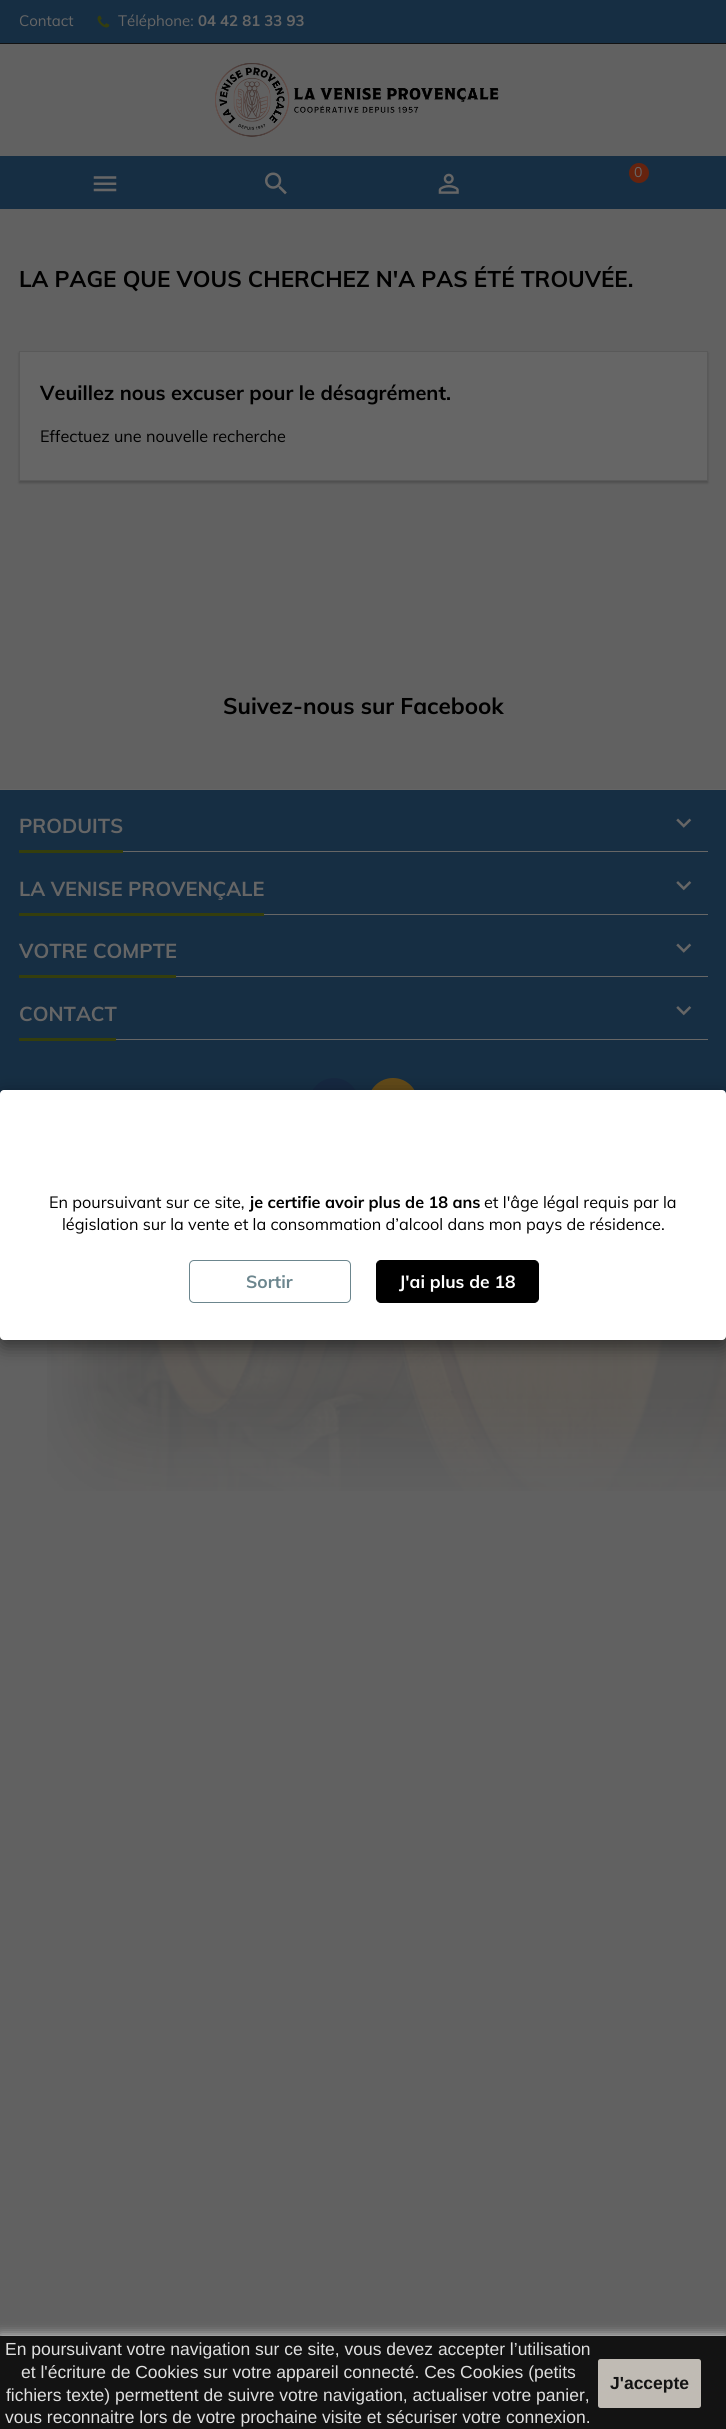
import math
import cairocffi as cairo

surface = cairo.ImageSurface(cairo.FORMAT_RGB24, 726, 2429)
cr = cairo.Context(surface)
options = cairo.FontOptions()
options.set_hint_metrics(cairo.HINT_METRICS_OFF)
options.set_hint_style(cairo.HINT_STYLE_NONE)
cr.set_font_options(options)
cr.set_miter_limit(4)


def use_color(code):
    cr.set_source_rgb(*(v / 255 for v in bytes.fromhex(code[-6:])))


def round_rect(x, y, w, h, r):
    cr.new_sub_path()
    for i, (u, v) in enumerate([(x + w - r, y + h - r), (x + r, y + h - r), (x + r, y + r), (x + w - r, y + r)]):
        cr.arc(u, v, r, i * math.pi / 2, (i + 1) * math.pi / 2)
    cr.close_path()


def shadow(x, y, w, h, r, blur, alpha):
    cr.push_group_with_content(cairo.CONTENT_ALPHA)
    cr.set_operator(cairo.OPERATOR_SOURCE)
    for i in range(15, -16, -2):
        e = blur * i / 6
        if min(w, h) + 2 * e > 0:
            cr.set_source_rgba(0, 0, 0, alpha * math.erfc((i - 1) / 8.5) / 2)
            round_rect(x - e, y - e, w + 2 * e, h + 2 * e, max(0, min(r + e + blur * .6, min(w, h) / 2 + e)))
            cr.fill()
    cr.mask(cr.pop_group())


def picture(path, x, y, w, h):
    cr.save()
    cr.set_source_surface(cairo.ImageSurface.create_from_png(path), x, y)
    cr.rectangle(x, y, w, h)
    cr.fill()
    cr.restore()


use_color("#616161")
cr.paint()
picture("img1.png", 47, 1336, 679, 155)
use_color("#162e43")
cr.rectangle(0, 0, 726, 43)
cr.fill()
use_color("#121212")
cr.rectangle(0, 43, 726, 1)
cr.fill()
cr.select_font_face("Muli")
cr.set_font_size(15)
use_color("#666666")
cr.move_to(19, 26)
cr.show_text("Contact")
picture("img2.png", 97, 15, 13, 13)
cr.move_to(118, 26)
cr.show_text("Téléphone:")
cr.select_font_face("Muli", cairo.FONT_SLANT_NORMAL, cairo.FONT_WEIGHT_BOLD)
cr.move_to(198, 26)
cr.show_text("04 42 81 33 93")
picture("img3.png", 215, 63, 284, 74)
use_color("#162e43")
cr.rectangle(0, 156, 726, 53)
cr.fill()
picture("img4.png", 93, 176, 24, 16)
picture("img5.png", 265, 172, 22, 23)
picture("img6.png", 438, 173, 21, 21)
use_color("#66230e")
cr.arc(639, 173, 10, 0, 2 * math.pi)
cr.fill()
cr.select_font_face("Muli")
cr.set_font_size(14)
use_color("#666666")
cr.move_to(634, 177)
cr.show_text("0")
cr.select_font_face("Muli", cairo.FONT_SLANT_NORMAL, cairo.FONT_WEIGHT_BOLD)
cr.set_font_size(22.5)
use_color("#000000")
cr.move_to(19, 287)
cr.show_text("LA PAGE QUE VOUS CHERCHEZ N'A PAS ÉTÉ TROUVÉE.")
use_color("#000000")
shadow(19, 353, 689, 130, 0, 1, 0.2)
use_color("#666666")
cr.rectangle(19.5, 351.5, 688, 129)
cr.fill_preserve()
use_color("#595959")
cr.set_line_width(1)
cr.stroke()
cr.set_font_size(20)
use_color("#000000")
cr.move_to(40, 400)
cr.show_text("Veuillez nous excuser pour le désagrément.")
cr.select_font_face("Muli")
cr.set_font_size(16.25)
cr.move_to(40, 442)
cr.show_text("Effectuez une nouvelle recherche")
cr.select_font_face("Muli", cairo.FONT_SLANT_NORMAL, cairo.FONT_WEIGHT_BOLD)
cr.set_font_size(22.5)
cr.move_to(223, 714)
cr.show_text("Suivez-nous sur Facebook")
use_color("#162e43")
cr.rectangle(0, 790, 726, 304)
cr.fill()
use_color("#666666")
cr.rectangle(0, 789, 726, 1)
cr.fill()
cr.rectangle(123, 851, 585, 1)
cr.fill()
use_color("#353e0d")
cr.rectangle(19, 850, 104, 3)
cr.fill()
cr.set_font_size(20)
use_color("#666666")
cr.move_to(19, 833)
cr.show_text("PRODUITS")
picture("img7.png", 676, 818, 16, 10)
cr.rectangle(264, 914, 444, 1)
cr.fill()
use_color("#353e0d")
cr.rectangle(19, 913, 245, 3)
cr.fill()
use_color("#666666")
cr.move_to(19, 896)
cr.show_text("LA VENISE PROVENÇALE")
picture("img8.png", 676, 881, 16, 10)
cr.rectangle(176, 976, 532, 1)
cr.fill()
use_color("#353e0d")
cr.rectangle(19, 975, 157, 3)
cr.fill()
use_color("#666666")
cr.move_to(19, 958)
cr.show_text("VOTRE COMPTE")
picture("img7.png", 676, 943, 16, 10)
cr.rectangle(116, 1039, 592, 1)
cr.fill()
use_color("#353e0d")
cr.rectangle(19, 1038, 97, 3)
cr.fill()
use_color("#666666")
cr.move_to(19, 1021)
cr.show_text("CONTACT")
picture("img8.png", 676, 1006, 16, 10)
use_color("#162841")
cr.arc(334, 1103, 25, 0, 2 * math.pi)
cr.fill()
use_color("#624a19")
cr.arc(393, 1103, 25, 0, 2 * math.pi)
cr.fill()
use_color("#000000")
shadow(0, 1096, 726, 250, 4, 9.5, 0.5)
use_color("#ffffff")
round_rect(0, 1090, 726, 250, 4)
cr.fill()
cr.select_font_face("Muli")
cr.set_font_size(16.25)
use_color("#000000")
cr.move_to(49, 1208)
cr.show_text("En poursuivant sur ce site,")
cr.select_font_face("Muli", cairo.FONT_SLANT_NORMAL, cairo.FONT_WEIGHT_BOLD)
cr.move_to(250, 1208)
cr.show_text("je certifie avoir plus de 18 ans")
cr.select_font_face("Muli")
cr.move_to(484, 1208)
cr.show_text("et l'âge légal requis par la")
cr.move_to(62, 1230)
cr.show_text("législation sur la vente et la consommation d’alcool dans mon pays de résidence.")
round_rect(189.5, 1260.5, 161, 42, 4.5)
use_color("#6c868e")
cr.stroke()
cr.select_font_face("Muli", cairo.FONT_SLANT_NORMAL, cairo.FONT_WEIGHT_BOLD)
cr.set_font_size(17.5)
cr.move_to(246, 1288)
cr.show_text("Sortir")
use_color("#000000")
round_rect(376.5, 1260.5, 162, 42, 4.5)
cr.fill_preserve()
cr.stroke()
use_color("#ffffff")
cr.move_to(399, 1288)
cr.show_text("J'ai plus de 18")
use_color("#dfdfdf")
shadow(0, 2336, 726, 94, 0, 6, 1)
use_color("#131313")
cr.rectangle(0, 2336, 726, 93)
cr.fill()
cr.select_font_face("Liberation Sans")
use_color("#dfdfdf")
cr.move_to(5, 2355)
cr.show_text("En poursuivant votre navigation sur ce site, vous devez accepter l’utilisation")
cr.move_to(21, 2378)
cr.show_text("et l'écriture de Cookies sur votre appareil connecté. Ces Cookies (petits")
cr.move_to(6, 2401)
cr.show_text("fichiers texte) permettent de suivre votre navigation, actualiser votre panier,")
cr.move_to(5, 2423)
cr.show_text("vous reconnaitre lors de votre prochaine visite et sécuriser votre connexion.")
use_color("#c0bbb4")
round_rect(598, 2359, 103, 49, 2.5)
cr.fill()
cr.select_font_face("Liberation Sans", cairo.FONT_SLANT_NORMAL, cairo.FONT_WEIGHT_BOLD)
use_color("#131313")
cr.move_to(610, 2389)
cr.show_text("J'accepte")
surface.write_to_png("result.png")
